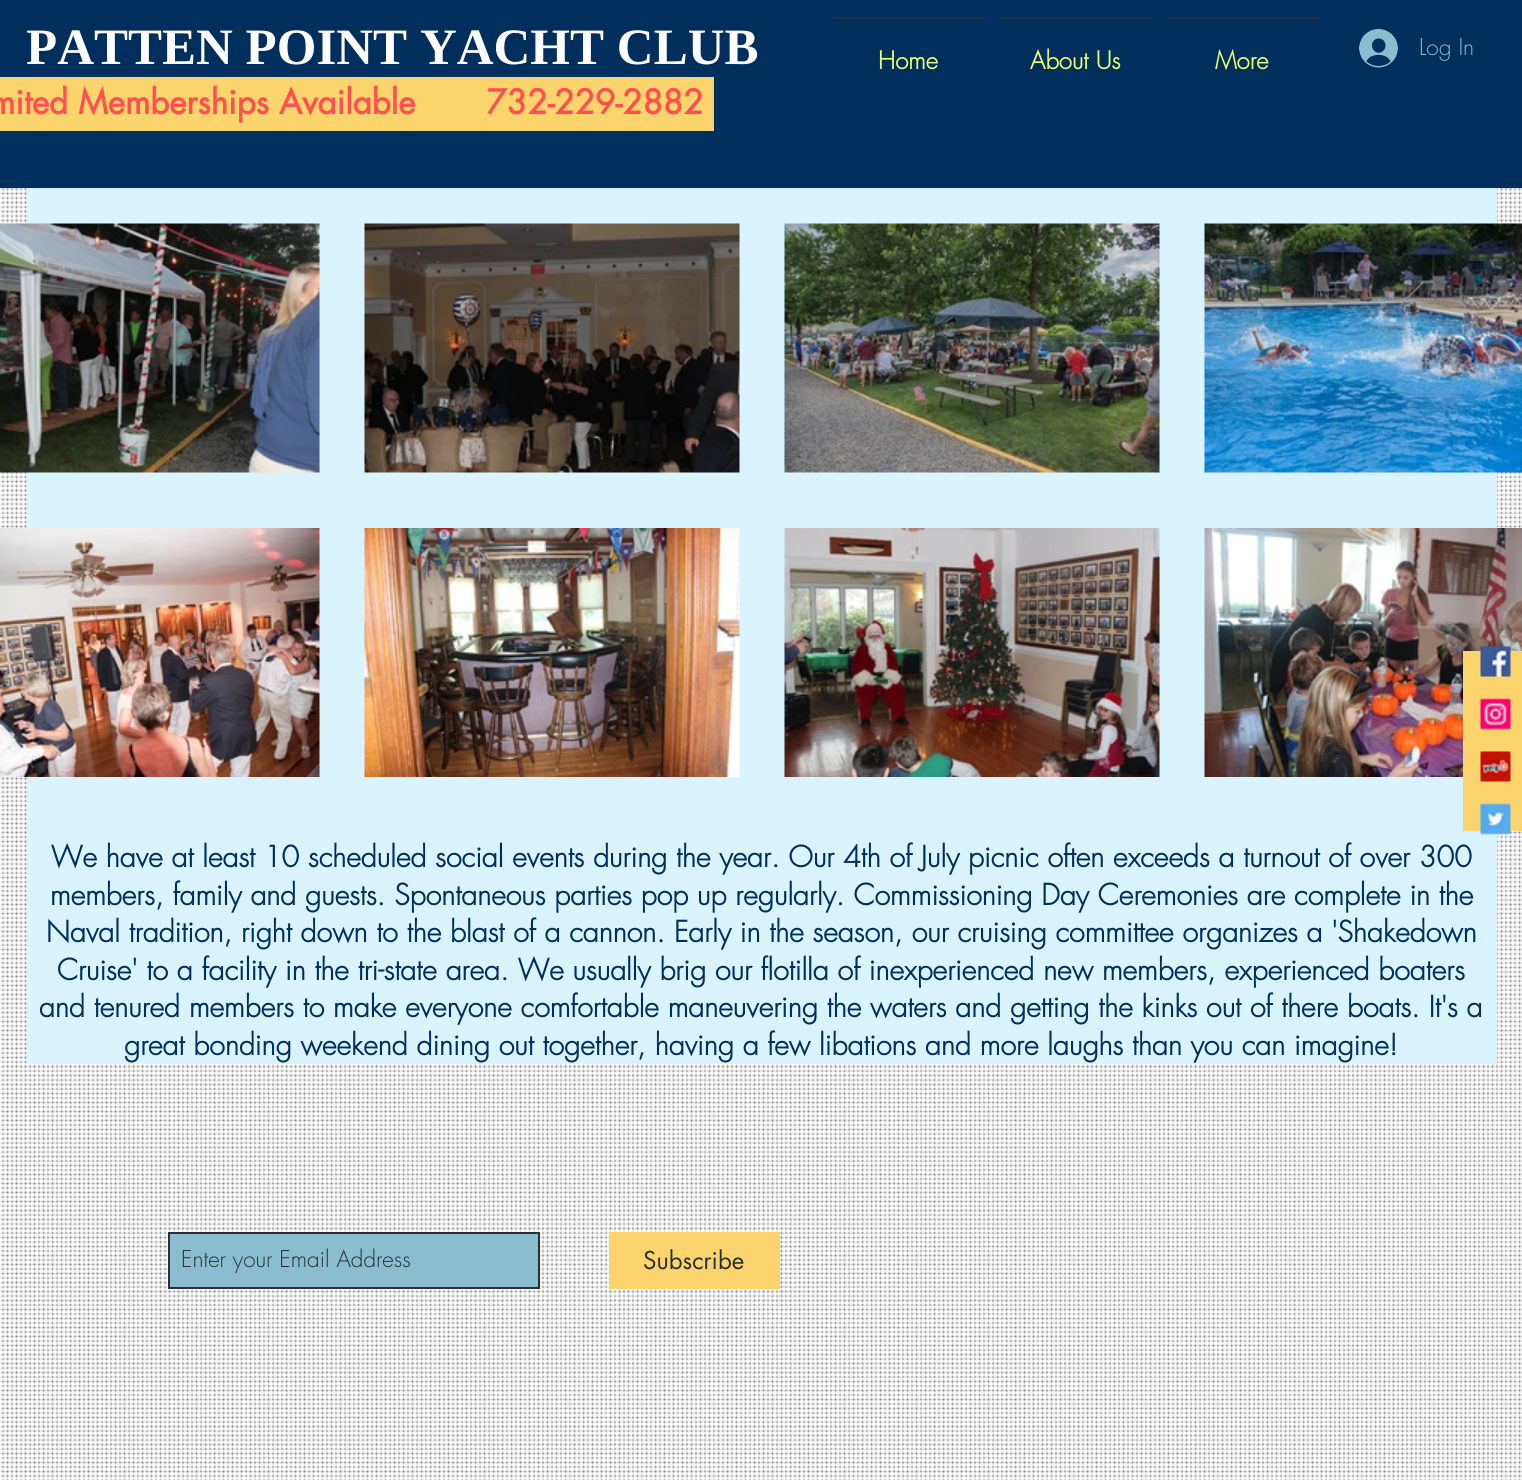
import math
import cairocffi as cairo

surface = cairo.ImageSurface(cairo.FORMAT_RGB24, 1522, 1480)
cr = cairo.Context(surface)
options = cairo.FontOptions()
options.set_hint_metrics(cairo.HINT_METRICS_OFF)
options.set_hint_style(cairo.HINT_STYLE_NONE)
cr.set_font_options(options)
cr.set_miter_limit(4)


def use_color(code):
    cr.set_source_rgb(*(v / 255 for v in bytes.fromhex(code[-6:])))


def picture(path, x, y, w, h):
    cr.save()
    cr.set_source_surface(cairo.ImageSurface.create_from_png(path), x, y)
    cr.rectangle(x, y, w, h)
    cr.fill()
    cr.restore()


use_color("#ffffff")
cr.paint()
use_color("#002e5d")
cr.rectangle(0, 0, 1522, 188)
cr.fill()
cr.select_font_face("Liberation Serif", cairo.FONT_SLANT_NORMAL, cairo.FONT_WEIGHT_BOLD)
cr.set_font_size(51)
use_color("#ffffff")
cr.move_to(26, 64)
cr.show_text("PATTEN POINT YACHT CLUB")
use_color("#2a2f36")
cr.rectangle(833, 17, 153, 2)
cr.fill()
cr.select_font_face("futura", cairo.FONT_SLANT_NORMAL, cairo.FONT_WEIGHT_BOLD)
cr.set_font_size(24)
use_color("#e9fc6d")
cr.move_to(878, 69)
cr.show_text("Home")
use_color("#2a2f36")
cr.rectangle(1001, 17, 151, 2)
cr.fill()
use_color("#e9fc6d")
cr.move_to(1030, 69)
cr.show_text("About Us")
use_color("#2a2f36")
cr.rectangle(1167, 17, 152, 2)
cr.fill()
use_color("#e9fc6d")
cr.move_to(1215, 69)
cr.show_text("More")
picture("img1.png", 1359, 29, 39, 39)
cr.select_font_face("futura Light")
cr.set_font_size(22.5)
use_color("#8abdcf")
cr.move_to(1419, 55)
cr.show_text("Log In")
use_color("#fcd46d")
cr.rectangle(0, 77, 714, 54)
cr.fill()
cr.select_font_face("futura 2", cairo.FONT_SLANT_NORMAL, cairo.FONT_WEIGHT_BOLD)
cr.set_font_size(33)
use_color("#ff4f4f")
cr.move_to(-10, 114)
cr.show_text("mited Memberships Available       732-229-2882")
picture("img14.png", 0, 188, 1522, 1292)
use_color("#d9f3ff")
cr.rectangle(27, 188, 1470, 876)
cr.fill()
picture("img13.png", 1204, 528, 318, 249)
use_color("#fcd46d")
cr.rectangle(1463, 651, 59, 180)
cr.fill()
picture("img2.png", 1480, 646, 31, 31)
picture("img3.png", 1480, 698, 31, 32)
picture("img4.png", 1480, 751, 31, 31)
picture("img5.png", 1480, 803, 31, 32)
picture("img6.png", 0, 223, 320, 250)
picture("img7.png", 364, 223, 376, 250)
picture("img8.png", 784, 223, 376, 250)
picture("img9.png", 1204, 223, 318, 250)
picture("img10.png", 0, 528, 320, 249)
picture("img11.png", 364, 528, 376, 249)
picture("img12.png", 784, 528, 376, 249)
cr.select_font_face("futura", cairo.FONT_SLANT_NORMAL, cairo.FONT_WEIGHT_BOLD)
cr.set_font_size(28.5)
use_color("#002e5d")
cr.move_to(51, 867)
cr.show_text("We have at least 10 scheduled social events during the year. Our 4th of July picnic often exceeds a turnout of over 300")
cr.move_to(50, 905)
cr.show_text("members, family and guests. Spontaneous parties pop up regularly. Commissioning Day Ceremonies are complete in the")
cr.move_to(46, 942)
cr.show_text("Naval tradition, right down to the blast of a cannon. Early in the season, our cruising committee organizes a 'Shakedown")
cr.move_to(57, 980)
cr.show_text("Cruise' to a facility in the tri-state area. We usually brig our flotilla of inexperienced new members, experienced boaters")
cr.move_to(39, 1017)
cr.show_text("and tenured members to make everyone comfortable maneuvering the waters and getting the kinks out of there boats. It's a")
cr.move_to(124, 1055)
cr.show_text("great bonding weekend dining out together, having a few libations and more laughs than you can imagine!")
use_color("#8abdcf")
cr.rectangle(169, 1233, 370, 55)
cr.fill_preserve()
use_color("#2a2f36")
cr.stroke()
cr.select_font_face("futura Light")
cr.set_font_size(22.5)
cr.move_to(181, 1267)
cr.show_text("Enter your Email Address")
use_color("#fcd46d")
cr.rectangle(609, 1232, 171, 57)
cr.fill()
cr.select_font_face("futura")
cr.set_font_size(24)
use_color("#2a2f36")
cr.move_to(643, 1269)
cr.show_text("Subscribe")
surface.write_to_png("result.png")
